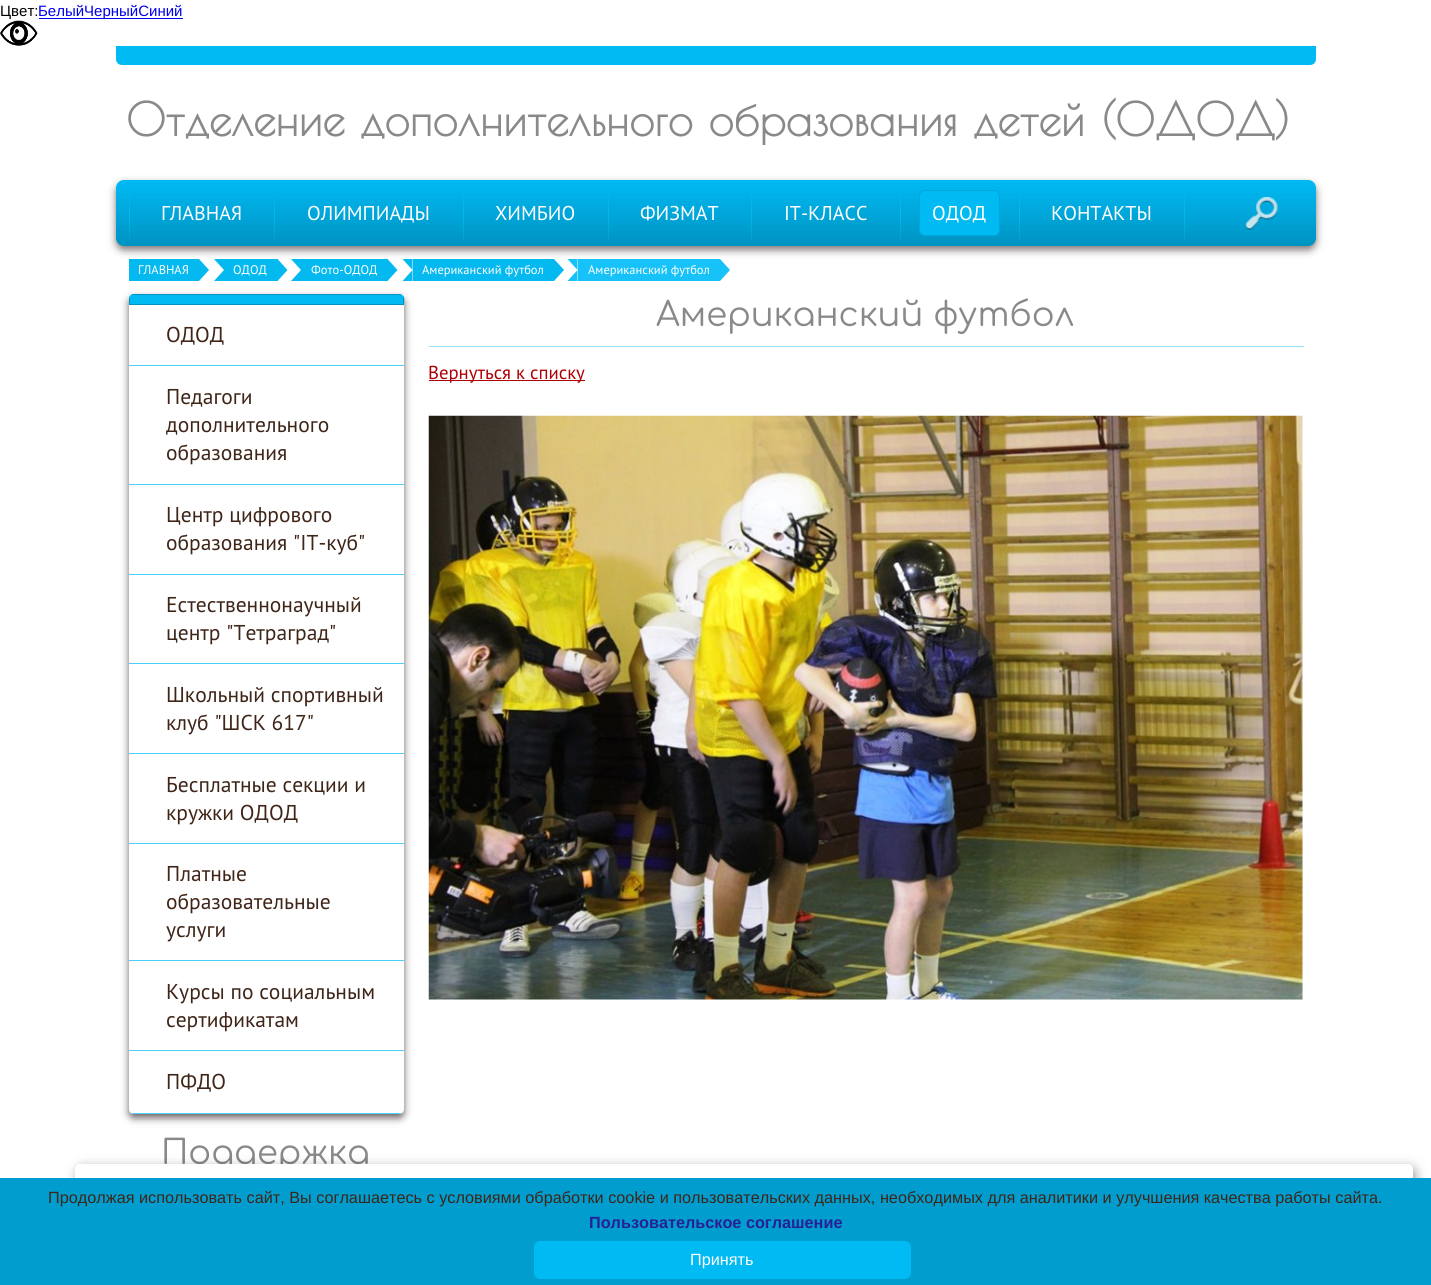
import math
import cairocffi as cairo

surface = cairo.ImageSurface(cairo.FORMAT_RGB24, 1431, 1285)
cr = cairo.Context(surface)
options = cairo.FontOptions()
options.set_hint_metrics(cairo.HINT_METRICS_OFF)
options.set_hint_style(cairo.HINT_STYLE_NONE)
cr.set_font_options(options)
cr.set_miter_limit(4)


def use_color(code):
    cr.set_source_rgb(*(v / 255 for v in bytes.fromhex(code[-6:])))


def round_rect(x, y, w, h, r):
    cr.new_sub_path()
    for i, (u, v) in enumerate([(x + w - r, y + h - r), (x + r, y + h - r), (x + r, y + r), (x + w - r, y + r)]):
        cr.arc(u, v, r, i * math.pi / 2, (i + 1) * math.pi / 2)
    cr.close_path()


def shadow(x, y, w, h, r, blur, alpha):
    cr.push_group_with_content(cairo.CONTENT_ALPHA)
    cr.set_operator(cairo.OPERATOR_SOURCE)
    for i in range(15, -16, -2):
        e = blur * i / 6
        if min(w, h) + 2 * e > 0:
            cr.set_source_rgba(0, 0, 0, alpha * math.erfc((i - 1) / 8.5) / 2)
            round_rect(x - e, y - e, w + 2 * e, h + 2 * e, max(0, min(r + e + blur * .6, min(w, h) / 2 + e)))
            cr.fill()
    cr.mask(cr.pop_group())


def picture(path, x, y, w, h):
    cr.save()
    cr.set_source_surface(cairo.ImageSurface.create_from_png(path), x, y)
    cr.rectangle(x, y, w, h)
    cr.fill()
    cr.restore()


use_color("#ffffff")
cr.paint()
cr.select_font_face("Liberation Sans")
cr.set_font_size(15)
use_color("#000000")
cr.move_to(0, 16)
cr.show_text("Цвет:")
use_color("#0000ee")
cr.rectangle(39, 18, 144, 1)
cr.fill()
cr.move_to(38, 16)
cr.show_text("БелыйЧерныйСиний")
picture("img1.png", 0, 20, 38, 26)
use_color("#00baf4")
cr.new_path()
cr.move_to(116, 46)
cr.line_to(1316, 46)
cr.line_to(1316, 59)
cr.curve_to(1316, 62.5, 1313.5, 65, 1310, 65)
cr.line_to(122, 65)
cr.curve_to(118.5, 65, 116, 62.5, 116, 59)
cr.close_path()
cr.fill()
cr.select_font_face("Poiret One", cairo.FONT_SLANT_NORMAL, cairo.FONT_WEIGHT_BOLD)
cr.set_font_size(45)
use_color("#898989")
cr.move_to(126, 136)
cr.show_text("Отделение дополнительного образования детей (ОДОД)")
use_color("#483b3b")
shadow(116, 184, 1200, 66, 8, 4, 0.69)
gradient = cairo.LinearGradient(716, 180, 716, 246)
gradient.add_color_stop_rgba(0, 0, 0.729, 0.957, 1)
gradient.add_color_stop_rgba(1, 0, 0.576, 0.757, 1)
cr.set_source(gradient)
round_rect(116, 180, 1200, 66, 8)
cr.fill()
gradient = cairo.LinearGradient(129, 180, 129, 246)
gradient.add_color_stop_rgba(0, 0, 0.729, 0.957, 0)
gradient.add_color_stop_rgba(0.5, 0, 0.729, 0.957, 1)
gradient.add_color_stop_rgba(1, 0, 0.729, 0.957, 0)
cr.set_source(gradient)
cr.rectangle(129, 190, 1, 56)
cr.fill()
cr.select_font_face("PT Sans")
cr.set_font_size(20)
use_color("#ffffff")
cr.move_to(161, 220)
cr.show_text("ГЛАВНАЯ")
gradient = cairo.LinearGradient(274, 180, 274, 246)
gradient.add_color_stop_rgba(0, 0, 0.729, 0.957, 0)
gradient.add_color_stop_rgba(0.5, 0, 0.729, 0.957, 1)
gradient.add_color_stop_rgba(1, 0, 0.729, 0.957, 0)
cr.set_source(gradient)
cr.rectangle(274, 190, 1, 56)
cr.fill()
use_color("#ffffff")
cr.move_to(307, 220)
cr.show_text("ОЛИМПИАДЫ")
gradient = cairo.LinearGradient(463, 180, 463, 246)
gradient.add_color_stop_rgba(0, 0, 0.729, 0.957, 0)
gradient.add_color_stop_rgba(0.5, 0, 0.729, 0.957, 1)
gradient.add_color_stop_rgba(1, 0, 0.729, 0.957, 0)
cr.set_source(gradient)
cr.rectangle(463, 190, 1, 56)
cr.fill()
use_color("#ffffff")
cr.move_to(495, 220)
cr.show_text("ХИМБИО")
gradient = cairo.LinearGradient(608, 180, 608, 246)
gradient.add_color_stop_rgba(0, 0, 0.729, 0.957, 0)
gradient.add_color_stop_rgba(0.5, 0, 0.729, 0.957, 1)
gradient.add_color_stop_rgba(1, 0, 0.729, 0.957, 0)
cr.set_source(gradient)
cr.rectangle(608, 190, 1, 56)
cr.fill()
use_color("#ffffff")
cr.move_to(640, 220)
cr.show_text("ФИЗМАТ")
gradient = cairo.LinearGradient(752, 180, 752, 246)
gradient.add_color_stop_rgba(0, 0, 0.729, 0.957, 0)
gradient.add_color_stop_rgba(0.5, 0, 0.729, 0.957, 1)
gradient.add_color_stop_rgba(1, 0, 0.729, 0.957, 0)
cr.set_source(gradient)
cr.rectangle(751, 190, 1, 56)
cr.fill()
use_color("#ffffff")
cr.move_to(784, 220)
cr.show_text("IT-КЛАСС")
gradient = cairo.LinearGradient(901, 180, 901, 246)
gradient.add_color_stop_rgba(0, 0, 0.729, 0.957, 0)
gradient.add_color_stop_rgba(0.5, 0, 0.729, 0.957, 1)
gradient.add_color_stop_rgba(1, 0, 0.729, 0.957, 0)
cr.set_source(gradient)
cr.rectangle(900, 190, 1, 56)
cr.fill()
use_color("#00baf4")
round_rect(919.5, 190.5, 80, 45, 5.5)
cr.fill_preserve()
use_color("#00a7db")
cr.set_line_width(1)
cr.stroke()
use_color("#ffffff")
cr.move_to(932, 220)
cr.show_text("ОДОД")
gradient = cairo.LinearGradient(1019, 180, 1019, 246)
gradient.add_color_stop_rgba(0, 0, 0.729, 0.957, 0)
gradient.add_color_stop_rgba(0.5, 0, 0.729, 0.957, 1)
gradient.add_color_stop_rgba(1, 0, 0.729, 0.957, 0)
cr.set_source(gradient)
cr.rectangle(1019, 190, 1, 56)
cr.fill()
use_color("#ffffff")
cr.move_to(1051, 220)
cr.show_text("КОНТАКТЫ")
gradient = cairo.LinearGradient(1184, 180, 1184, 246)
gradient.add_color_stop_rgba(0, 0, 0.729, 0.957, 0)
gradient.add_color_stop_rgba(0.5, 0, 0.729, 0.957, 1)
gradient.add_color_stop_rgba(1, 0, 0.729, 0.957, 0)
cr.set_source(gradient)
cr.rectangle(1184, 190, 1, 56)
cr.fill()
picture("img2.png", 1245, 197, 33, 33)
use_color("#04b8f0")
cr.rectangle(129, 259, 70, 22)
cr.fill()
cr.set_font_size(12.5)
use_color("#ffffff")
cr.move_to(138, 274)
cr.show_text("ГЛАВНАЯ")
use_color("#04b8f0")
cr.new_path()
cr.move_to(199, 281)
cr.line_to(199, 259)
cr.line_to(209, 270)
cr.close_path()
cr.move_to(214, 259)
cr.line_to(224, 259)
cr.line_to(224, 270)
cr.close_path()
cr.fill()
cr.new_path()
cr.move_to(224, 281)
cr.line_to(214, 281)
cr.line_to(224, 270)
cr.close_path()
cr.fill()
cr.rectangle(224, 259, 54, 22)
cr.fill()
use_color("#ffffff")
cr.move_to(233, 274)
cr.show_text("ОДОД")
use_color("#04b8f0")
cr.new_path()
cr.move_to(277.5, 281)
cr.line_to(277.5, 259)
cr.line_to(287.5, 270)
cr.close_path()
cr.move_to(291, 259)
cr.line_to(301, 259)
cr.line_to(301, 270)
cr.close_path()
cr.fill()
cr.new_path()
cr.move_to(301, 281)
cr.line_to(291, 281)
cr.line_to(301, 270)
cr.close_path()
cr.fill()
cr.rectangle(301, 259, 87, 22)
cr.fill()
use_color("#ffffff")
cr.move_to(311, 274)
cr.show_text("Фото-ОДОД")
use_color("#04b8f0")
cr.new_path()
cr.move_to(387.5, 281)
cr.line_to(387.5, 259)
cr.line_to(397.5, 270)
cr.close_path()
cr.move_to(402.5, 259)
cr.line_to(412.5, 259)
cr.line_to(412.5, 270)
cr.close_path()
cr.fill()
cr.new_path()
cr.move_to(412.5, 281)
cr.line_to(402.5, 281)
cr.line_to(412.5, 270)
cr.close_path()
cr.fill()
cr.rectangle(413, 259, 141, 22)
cr.fill()
use_color("#ffffff")
cr.move_to(422, 274)
cr.show_text("Американский футбол")
use_color("#04b8f0")
cr.new_path()
cr.move_to(554, 281)
cr.line_to(554, 259)
cr.line_to(564, 270)
cr.close_path()
cr.fill()
use_color("#16c2f8")
cr.new_path()
cr.move_to(567.5, 259)
cr.line_to(577.5, 259)
cr.line_to(577.5, 270)
cr.close_path()
cr.move_to(577.5, 281)
cr.line_to(567.5, 281)
cr.line_to(577.5, 270)
cr.close_path()
cr.fill()
cr.rectangle(578, 259, 142, 22)
cr.fill()
use_color("#ffffff")
cr.move_to(588, 274)
cr.show_text("Американский футбол")
use_color("#16c2f8")
cr.new_path()
cr.move_to(720, 281)
cr.line_to(720, 259)
cr.line_to(730, 270)
cr.close_path()
cr.fill()
use_color("#483b3b")
shadow(129, 298, 275, 820, 5, 4, 0.8)
use_color("#00baf4")
cr.new_path()
cr.move_to(134, 294)
cr.line_to(399, 294)
cr.curve_to(402, 294, 404, 296, 404, 299)
cr.line_to(404, 305)
cr.line_to(129, 305)
cr.line_to(129, 299)
cr.curve_to(129, 296, 131, 294, 134, 294)
cr.close_path()
cr.fill()
use_color("#0093c1")
cr.set_fill_rule(cairo.FILL_RULE_EVEN_ODD)
cr.new_path()
cr.move_to(129, 299)
cr.line_to(129, 305)
cr.line_to(404, 305)
cr.curve_to(404, 302, 405, 298, 403, 296)
cr.line_to(403, 304)
cr.line_to(130, 304)
cr.line_to(130, 296)
cr.close_path()
cr.move_to(134, 294)
cr.line_to(131, 295)
cr.line_to(402, 295)
cr.line_to(399, 294)
cr.close_path()
cr.fill()
use_color("#ffffff")
cr.rectangle(129, 305, 275, 60)
cr.fill()
use_color("#48cef8")
cr.rectangle(129, 365, 275, 1)
cr.fill()
cr.set_font_size(21.5)
use_color("#3f2518")
cr.move_to(166, 342)
cr.show_text("ОДОД")
use_color("#ffffff")
cr.rectangle(129, 366, 275, 118)
cr.fill()
use_color("#48cef8")
cr.rectangle(129, 484, 275, 1)
cr.fill()
use_color("#3f2518")
cr.move_to(166, 404)
cr.show_text("Педагоги")
cr.move_to(166, 432)
cr.show_text("дополнительного")
cr.move_to(166, 460)
cr.show_text("образования")
use_color("#ffffff")
cr.rectangle(129, 485, 275, 89)
cr.fill()
use_color("#48cef8")
cr.rectangle(129, 574, 275, 1)
cr.fill()
use_color("#3f2518")
cr.move_to(166, 522)
cr.show_text("Центр цифрового")
cr.move_to(166, 550)
cr.show_text("образования \"IT-куб\"")
use_color("#ffffff")
cr.rectangle(129, 575, 275, 88)
cr.fill()
use_color("#48cef8")
cr.rectangle(129, 663, 275, 1)
cr.fill()
use_color("#3f2518")
cr.move_to(166, 612)
cr.show_text("Естественнонаучный")
cr.move_to(166, 640)
cr.show_text("центр \"Тетраград\"")
use_color("#ffffff")
cr.rectangle(129, 664, 275, 89)
cr.fill()
use_color("#48cef8")
cr.rectangle(129, 753, 275, 1)
cr.fill()
use_color("#3f2518")
cr.move_to(166, 702)
cr.show_text("Школьный спортивный")
cr.move_to(166, 730)
cr.show_text("клуб \"ШСК 617\"")
use_color("#ffffff")
cr.rectangle(129, 754, 275, 89)
cr.fill()
use_color("#48cef8")
cr.rectangle(129, 843, 275, 1)
cr.fill()
use_color("#3f2518")
cr.move_to(166, 792)
cr.show_text("Бесплатные секции и")
cr.move_to(166, 820)
cr.show_text("кружки ОДОД")
use_color("#ffffff")
cr.rectangle(129, 844, 275, 116)
cr.fill()
use_color("#48cef8")
cr.rectangle(129, 960, 275, 1)
cr.fill()
use_color("#3f2518")
cr.move_to(166, 881)
cr.show_text("Платные")
cr.move_to(166, 909)
cr.show_text("образовательные")
cr.move_to(166, 937)
cr.show_text("услуги")
use_color("#ffffff")
cr.rectangle(129, 961, 275, 89)
cr.fill()
use_color("#48cef8")
cr.rectangle(129, 1050, 275, 1)
cr.fill()
use_color("#3f2518")
cr.move_to(166, 999)
cr.show_text("Курсы по социальным")
cr.move_to(166, 1027)
cr.show_text("сертификатам")
use_color("#ffffff")
cr.new_path()
cr.move_to(129, 1051)
cr.line_to(404, 1051)
cr.line_to(404, 1109)
cr.curve_to(404, 1112, 402, 1114, 399, 1114)
cr.line_to(134, 1114)
cr.curve_to(131, 1114, 129, 1112, 129, 1109)
cr.close_path()
cr.fill()
cr.save()
cr.set_fill_rule(cairo.FILL_RULE_WINDING)
round_rect(129, 294, 275, 820, 5)
cr.clip()
use_color("#48cef8")
cr.rectangle(129, 1113, 275, 1)
cr.fill()
cr.restore()
use_color("#3f2518")
cr.move_to(166, 1089)
cr.show_text("ПФДО")
cr.select_font_face("Comfortaa")
cr.set_font_size(33.75)
use_color("#898989")
cr.move_to(161, 1164)
cr.show_text("Поддержка")
use_color("#94e1f9")
cr.rectangle(429, 346, 875, 1)
cr.fill()
use_color("#898989")
cr.move_to(656, 326)
cr.show_text("Американский футбол")
use_color("#ad0004")
cr.rectangle(429, 380, 156, 1)
cr.fill()
cr.select_font_face("PT Sans")
cr.set_font_size(18.75)
cr.move_to(428, 379)
cr.show_text("Вернуться к списку")
picture("img3.png", 428, 415, 875, 585)
use_color("#000000")
shadow(78, 1168, 1337, 102, 5, 6, 0.4)
use_color("#ffffff")
round_rect(75, 1164, 1338, 102, 5)
cr.fill()
use_color("#009dce")
cr.rectangle(0, 1178, 1431, 107)
cr.fill()
cr.select_font_face("Liberation Sans")
cr.set_font_size(16.25)
use_color("#3f2518")
cr.move_to(48, 1203)
cr.show_text("Продолжая использовать сайт, Вы соглашаетесь с условиями обработки cookie и пользовательских данных, необходимых для аналитики и улучшения качества работы сайта.")
cr.select_font_face("Liberation Sans", cairo.FONT_SLANT_NORMAL, cairo.FONT_WEIGHT_BOLD)
use_color("#291f96")
cr.move_to(589, 1228)
cr.show_text("Пользовательское соглашение")
use_color("#00baf4")
round_rect(534, 1241, 377, 38, 6)
cr.fill()
cr.select_font_face("Liberation Sans")
use_color("#ffffff")
cr.move_to(690, 1265)
cr.show_text("Принять")
surface.write_to_png("result.png")
